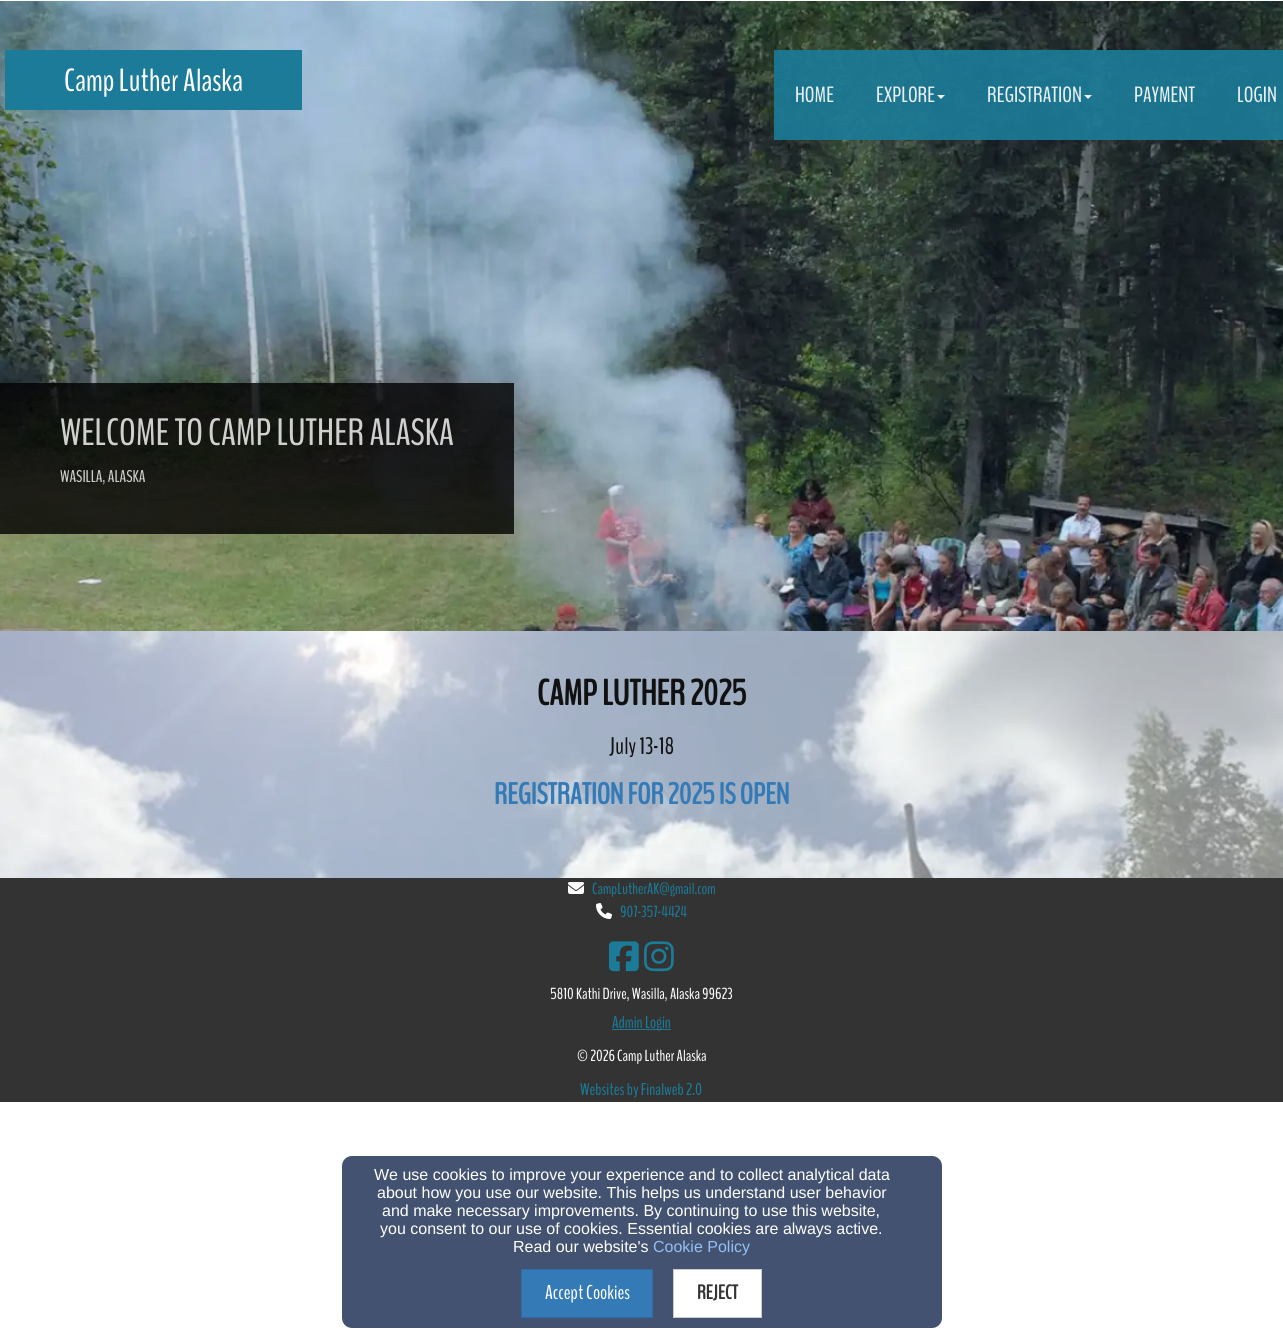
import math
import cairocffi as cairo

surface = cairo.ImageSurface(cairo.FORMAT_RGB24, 1283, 1338)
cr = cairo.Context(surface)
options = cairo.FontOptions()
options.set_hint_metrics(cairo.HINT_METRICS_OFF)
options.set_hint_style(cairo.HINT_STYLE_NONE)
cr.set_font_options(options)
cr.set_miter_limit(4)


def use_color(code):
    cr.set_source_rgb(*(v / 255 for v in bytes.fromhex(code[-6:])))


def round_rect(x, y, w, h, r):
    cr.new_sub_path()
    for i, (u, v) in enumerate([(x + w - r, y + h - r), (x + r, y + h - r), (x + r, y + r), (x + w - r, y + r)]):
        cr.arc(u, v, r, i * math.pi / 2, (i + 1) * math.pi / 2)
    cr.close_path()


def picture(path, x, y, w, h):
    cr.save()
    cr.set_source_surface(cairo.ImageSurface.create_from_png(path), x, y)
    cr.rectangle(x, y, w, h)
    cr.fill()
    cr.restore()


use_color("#ffffff")
cr.paint()
picture("img1.png", 0, 1, 1283, 630)
use_color("#1b7b98")
cr.rectangle(5, 50, 297, 60)
cr.fill()
cr.select_font_face("BenchNine")
cr.set_font_size(32)
use_color("#ffffff")
cr.move_to(64, 91)
cr.show_text("Camp Luther Alaska")
cr.set_source_rgba(0.106, 0.482, 0.596, 0.9)
cr.rectangle(774, 50, 509, 90)
cr.fill()
cr.set_font_size(22)
use_color("#e8f1f4")
cr.move_to(795, 102)
cr.show_text("HOME")
cr.move_to(876, 102)
cr.show_text("EXPLORE")
cr.new_path()
cr.move_to(937, 95)
cr.line_to(945, 95)
cr.line_to(941, 99)
cr.close_path()
cr.fill()
cr.move_to(987, 102)
cr.show_text("REGISTRATION")
cr.new_path()
cr.move_to(1084, 95)
cr.line_to(1092, 95)
cr.line_to(1088, 99)
cr.close_path()
cr.fill()
cr.move_to(1134, 102)
cr.show_text("PAYMENT")
cr.move_to(1237, 102)
cr.show_text("LOGIN")
cr.set_source_rgba(0, 0, 0, 0.8)
cr.rectangle(0, 383, 514, 151)
cr.fill()
cr.set_font_size(38)
use_color("#d0d0cf")
cr.move_to(60, 445)
cr.show_text("WELCOME TO")
cr.move_to(208, 445)
cr.show_text("CAMP LUTHER ALASKA")
cr.set_font_size(17)
cr.move_to(60, 482)
cr.show_text("WASILLA, ALASKA")
picture("img2.png", 0, 631, 1283, 247)
cr.select_font_face("BenchNine", cairo.FONT_SLANT_NORMAL, cairo.FONT_WEIGHT_BOLD)
cr.set_font_size(36)
use_color("#111111")
cr.move_to(537, 705)
cr.show_text("CAMP LUTHER 2025")
cr.select_font_face("BenchNine")
cr.set_font_size(24)
cr.move_to(609, 754)
cr.show_text("July 13-18")
cr.select_font_face("BenchNine", cairo.FONT_SLANT_NORMAL, cairo.FONT_WEIGHT_BOLD)
cr.set_font_size(30)
use_color("#337ab7")
cr.move_to(494, 804)
cr.show_text("REGISTRATION FOR 2025 IS OPEN")
use_color("#333333")
cr.rectangle(0, 878, 1283, 224)
cr.fill()
picture("img3.png", 568, 882, 16, 12)
cr.select_font_face("BenchNine")
cr.set_font_size(16)
use_color("#1b7b98")
cr.move_to(592, 894)
cr.show_text("CampLutherAK@gmail.com")
picture("img4.png", 596, 903, 16, 16)
cr.move_to(620, 917)
cr.show_text("907-357-4424")
picture("img5.png", 609, 941, 30, 31)
picture("img6.png", 644, 941, 30, 31)
use_color("#ffffff")
cr.move_to(550, 999)
cr.show_text("5810 Kathi Drive, Wasilla, Alaska 99623")
use_color("#1b7b98")
cr.rectangle(612, 1029, 59, 1)
cr.fill()
cr.set_font_size(17)
cr.move_to(612, 1028)
cr.show_text("Admin Login")
cr.set_font_size(16)
use_color("#ffffff")
cr.move_to(577, 1061)
cr.show_text("© 2026 Camp Luther Alaska")
cr.set_font_size(17)
use_color("#1b7b98")
cr.move_to(580, 1095)
cr.show_text("Websites by Finalweb 2.0")
use_color("#435270")
round_rect(342, 1156, 600, 172, 10)
cr.fill()
cr.select_font_face("Liberation Sans")
cr.set_font_size(16)
use_color("#ffffff")
cr.move_to(374, 1180)
cr.show_text("We use cookies to improve your experience and to collect analytical data")
cr.move_to(377, 1198)
cr.show_text("about how you use our website. This helps us understand user behavior")
cr.move_to(382, 1216)
cr.show_text("and make necessary improvements. By continuing to use this website,")
cr.move_to(380, 1234)
cr.show_text("you consent to our use of cookies. Essential cookies are always active.")
cr.move_to(513, 1252)
cr.show_text("Read our website's")
use_color("#94c0f3")
cr.move_to(653, 1252)
cr.show_text("Cookie Policy")
use_color("#337ab7")
cr.rectangle(521.5, 1269.5, 131, 48)
cr.fill_preserve()
use_color("#2e6da4")
cr.set_line_width(1)
cr.stroke()
cr.select_font_face("BenchNine")
cr.set_font_size(20)
use_color("#ffffff")
cr.move_to(545, 1299)
cr.show_text("Accept Cookies")
cr.rectangle(673.5, 1269.5, 88, 48)
cr.fill_preserve()
use_color("#cccccc")
cr.stroke()
cr.select_font_face("BenchNine", cairo.FONT_SLANT_NORMAL, cairo.FONT_WEIGHT_BOLD)
use_color("#333333")
cr.move_to(697, 1299)
cr.show_text("REJECT")
surface.write_to_png("result.png")
